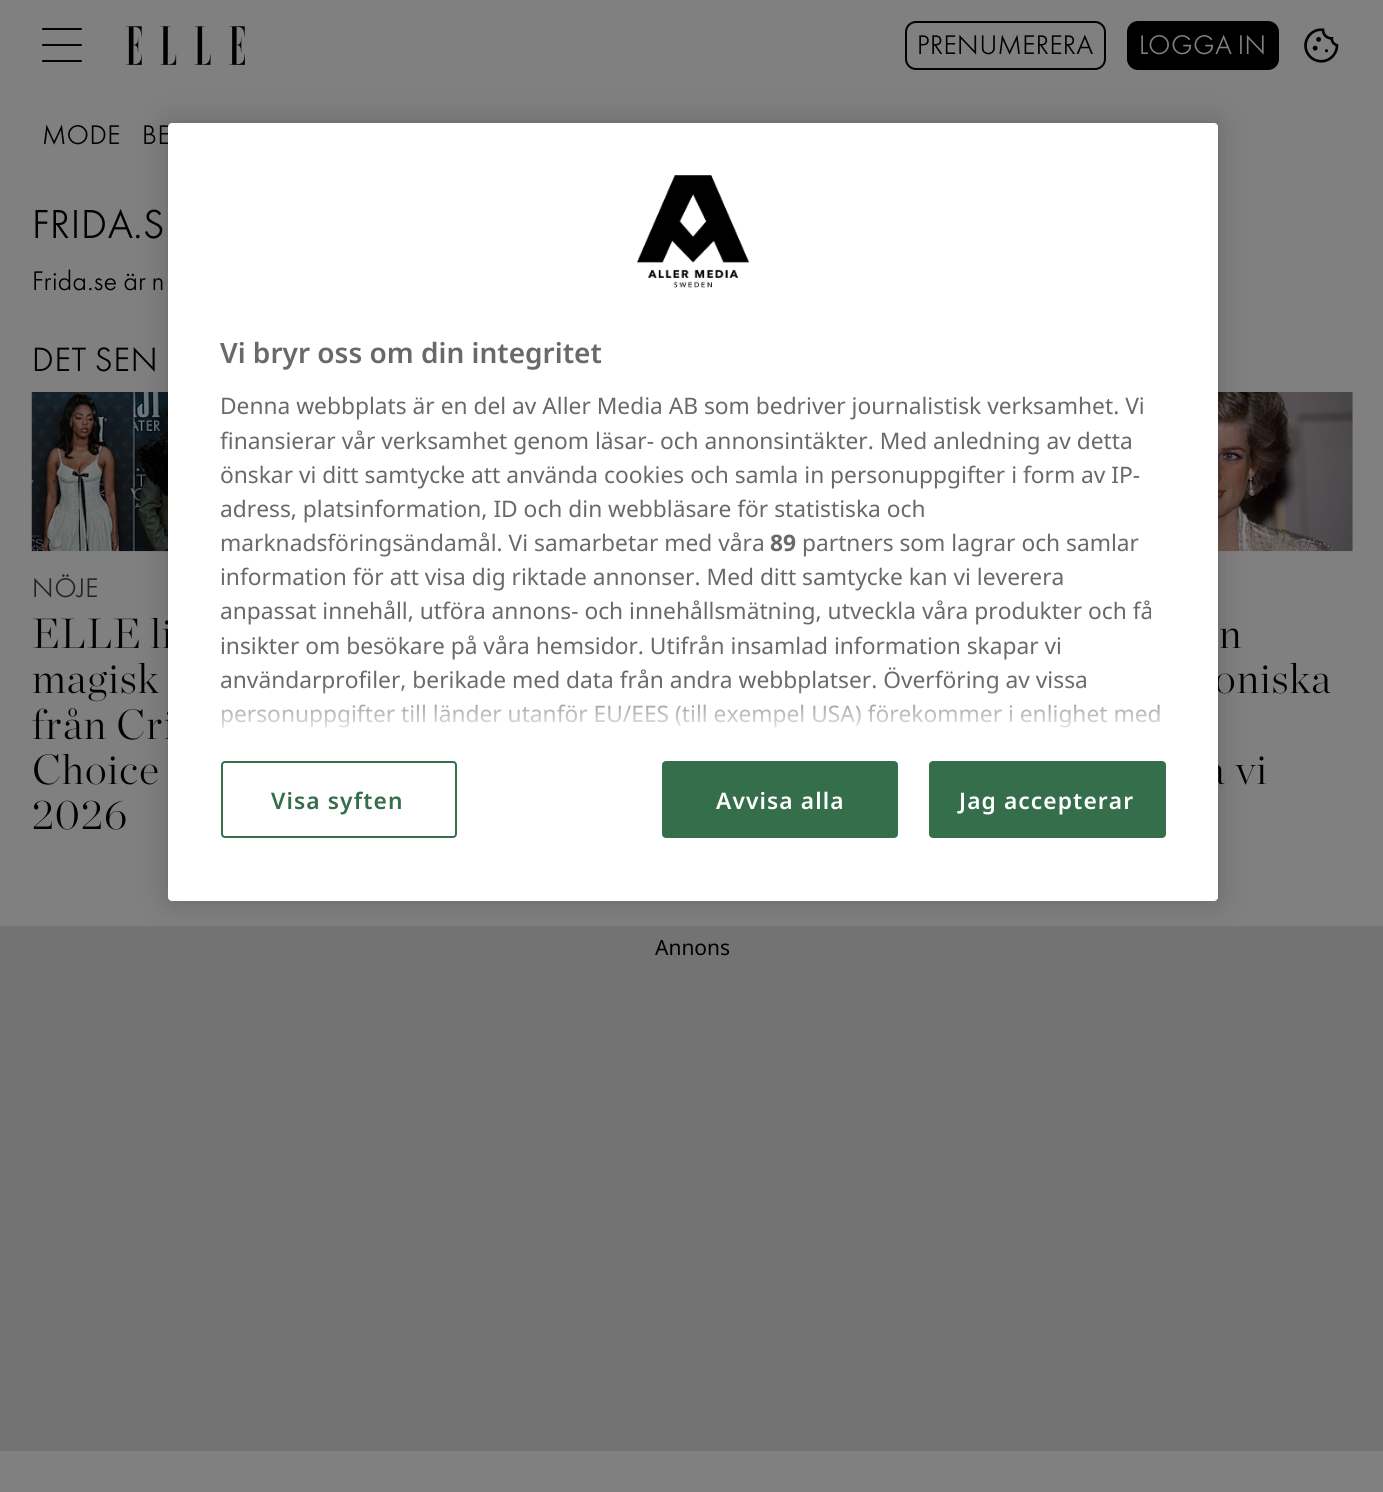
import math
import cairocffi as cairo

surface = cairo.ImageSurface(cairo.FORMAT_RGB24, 1383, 1492)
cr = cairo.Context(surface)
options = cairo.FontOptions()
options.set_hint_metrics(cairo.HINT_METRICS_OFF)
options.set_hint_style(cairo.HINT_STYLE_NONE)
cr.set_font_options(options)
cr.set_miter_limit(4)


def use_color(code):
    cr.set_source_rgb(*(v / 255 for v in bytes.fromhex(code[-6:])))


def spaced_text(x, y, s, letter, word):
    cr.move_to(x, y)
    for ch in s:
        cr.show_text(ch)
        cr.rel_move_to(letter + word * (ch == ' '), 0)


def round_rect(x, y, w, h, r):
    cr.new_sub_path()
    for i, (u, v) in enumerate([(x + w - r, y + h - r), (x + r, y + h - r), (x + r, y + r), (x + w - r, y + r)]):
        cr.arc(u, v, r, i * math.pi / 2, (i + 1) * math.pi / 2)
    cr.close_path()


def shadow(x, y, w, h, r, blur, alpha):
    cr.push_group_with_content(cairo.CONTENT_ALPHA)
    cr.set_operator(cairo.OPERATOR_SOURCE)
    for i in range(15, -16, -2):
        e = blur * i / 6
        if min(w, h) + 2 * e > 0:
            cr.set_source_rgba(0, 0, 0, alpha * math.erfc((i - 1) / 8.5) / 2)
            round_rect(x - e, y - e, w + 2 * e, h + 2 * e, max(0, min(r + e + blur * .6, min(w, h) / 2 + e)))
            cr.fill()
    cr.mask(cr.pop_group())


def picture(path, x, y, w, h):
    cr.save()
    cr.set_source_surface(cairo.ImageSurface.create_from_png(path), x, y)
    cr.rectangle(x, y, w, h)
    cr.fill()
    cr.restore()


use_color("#808080")
cr.paint()
use_color("#000000")
round_rect(42, 28, 40, 2, 1)
cr.fill()
round_rect(42, 44, 40, 2, 1)
cr.fill()
round_rect(42, 60, 40, 2, 1)
cr.fill()
picture("img1.png", 126, 26, 119, 39)
round_rect(906, 22, 199, 47, 10)
cr.stroke()
cr.select_font_face("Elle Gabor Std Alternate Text")
cr.set_font_size(28)
spaced_text(917, 54, "PRENUMERERA", 0.5, 0)
round_rect(1128, 22, 150, 47, 10)
cr.fill_preserve()
cr.stroke()
use_color("#808080")
spaced_text(1139, 54, "LOGGA IN", 0.5, 0)
picture("img2.png", 1304, 28, 35, 35)
use_color("#000000")
spaced_text(42, 144, "MODE", 0.5, 0)
spaced_text(142, 144, "BE", 0.5, 0)
cr.set_font_size(42)
spaced_text(32, 238, "FRIDA.S", 1, 0)
cr.set_font_size(28)
spaced_text(32, 290, "Frida.se är n", 0.5, 0)
cr.set_font_size(35)
spaced_text(32, 371, "DET SEN", 1, 0)
picture("img3.png", 31, 392, 137, 160)
cr.set_font_size(28)
use_color("#232323")
spaced_text(32, 597, "NÖJE", 0.5, 0)
cr.select_font_face("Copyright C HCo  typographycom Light")
cr.set_font_size(42)
use_color("#000000")
spaced_text(32, 648, "ELLE li", 1, 0)
spaced_text(32, 693, "magisk", 1, 0)
spaced_text(32, 739, "från Cri", 1, 0)
spaced_text(32, 784, "Choice", 1, 0)
spaced_text(32, 829, "2026", 1, 0)
picture("img4.png", 1218, 392, 135, 160)
spaced_text(1219, 648, "n", 1, 0)
spaced_text(1214, 693, "oniska", 1, 0)
spaced_text(1205, 784, "a vi", 1, 0)
use_color("#737373")
cr.rectangle(0, 926, 1383, 525)
cr.fill()
cr.select_font_face("Noto Sans")
cr.set_font_size(21)
use_color("#000000")
cr.move_to(655, 955)
cr.show_text("Annons")
use_color("#000000")
shadow(168, 123, 1050, 778, 4, 16, 0.2)
use_color("#ffffff")
round_rect(168, 123, 1050, 778, 4)
cr.fill()
picture("img5.png", 637, 175, 112, 113)
cr.select_font_face("Noto Sans SemiBold")
cr.set_font_size(28)
use_color("#696969")
cr.move_to(220, 363)
cr.show_text("Vi bryr oss om din integritet")
cr.select_font_face("Noto Sans")
cr.set_font_size(22.75)
cr.move_to(220, 414)
cr.show_text("Denna webbplats är en del av Aller Media AB som bedriver journalistisk verksamhet. Vi")
cr.move_to(220, 449)
cr.show_text("finansierar vår verksamhet genom läsar- och annonsintäkter. Med anledning av detta")
cr.move_to(220, 483)
cr.show_text("önskar vi ditt samtycke att använda cookies och samla in personuppgifter i form av IP-")
cr.move_to(220, 517)
cr.show_text("adress, platsinformation, ID och din webbläsare för statistiska och")
cr.move_to(220, 551)
cr.show_text("marknadsföringsändamål. Vi samarbetar med våra")
cr.select_font_face("Noto Sans", cairo.FONT_SLANT_NORMAL, cairo.FONT_WEIGHT_BOLD)
cr.move_to(770, 551)
cr.show_text("89")
cr.select_font_face("Noto Sans")
cr.move_to(802, 551)
cr.show_text("partners som lagrar och samlar")
cr.move_to(220, 585)
cr.show_text("information för att visa dig riktade annonser. Med ditt samtycke kan vi leverera")
cr.move_to(220, 619)
cr.show_text("anpassat innehåll, utföra annons- och innehållsmätning, utveckla våra produkter och få")
cr.move_to(220, 654)
cr.show_text("insikter om besökare på våra hemsidor. Utifrån insamlad information skapar vi")
cr.move_to(220, 688)
cr.show_text("användarprofiler, berikade med data från andra webbplatser. Överföring av vissa")
cr.move_to(220, 722)
cr.show_text("personuppgifter till länder utanför EU/EES (till exempel USA) förekommer i enlighet med")
gradient = cairo.LinearGradient(728, 684, 728, 737)
gradient.add_color_stop_rgba(0, 1, 1, 1, 0)
gradient.add_color_stop_rgba(1, 1, 1, 1, 1)
cr.set_source(gradient)
cr.rectangle(221, 685, 939, 43)
cr.fill()
round_rect(222, 762, 234, 75, 3)
use_color("#346e4a")
cr.stroke()
cr.select_font_face("Noto Sans SemiBold")
spaced_text(271, 809, "Visa syften", 1.1, 0)
round_rect(663, 762, 234, 75, 3)
cr.fill_preserve()
cr.stroke()
use_color("#ffffff")
spaced_text(716, 809, "Avvisa alla", 1.1, 0)
use_color("#346e4a")
round_rect(930, 762, 235, 75, 3)
cr.fill_preserve()
cr.stroke()
use_color("#ffffff")
spaced_text(959, 809, "Jag accepterar", 1.1, 0)
surface.write_to_png("result.png")
